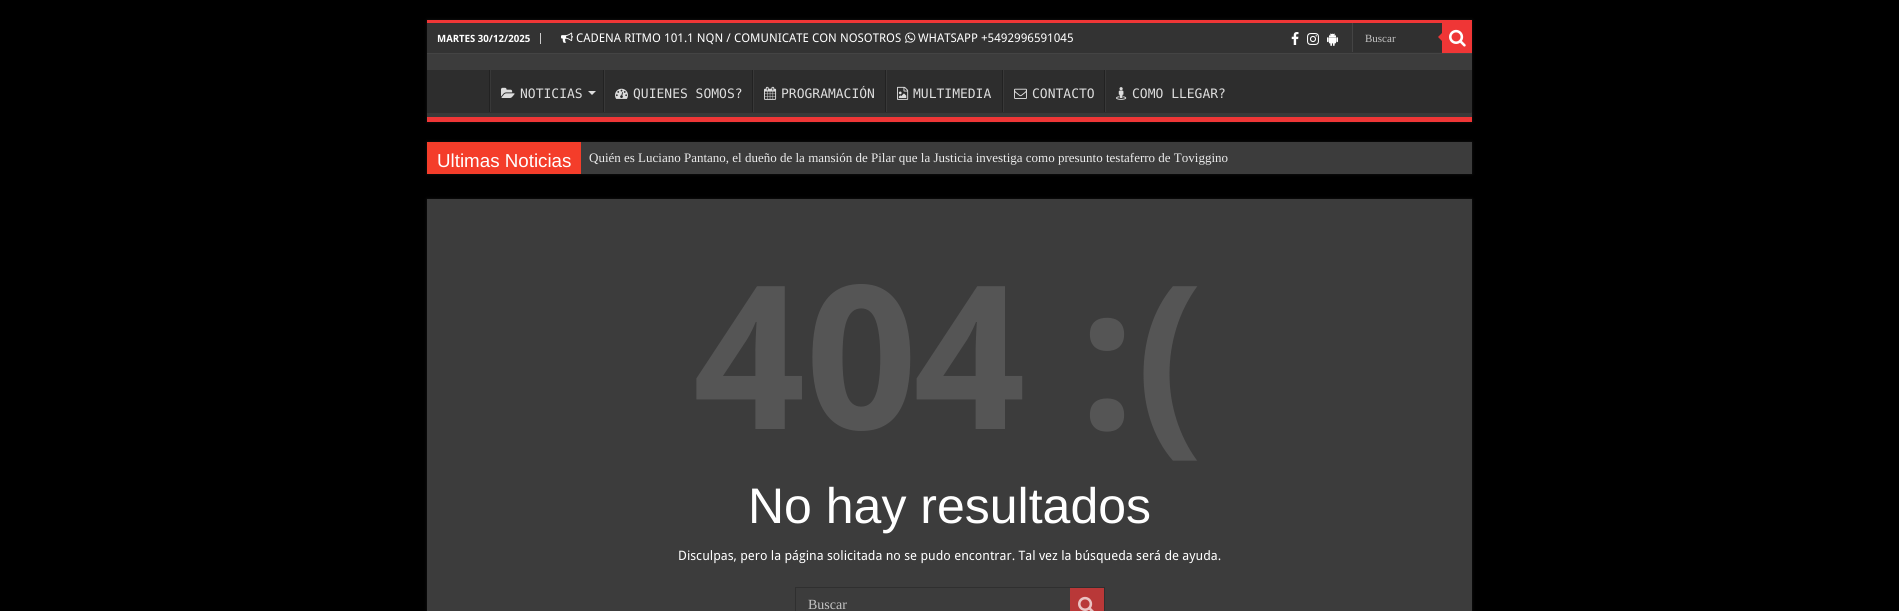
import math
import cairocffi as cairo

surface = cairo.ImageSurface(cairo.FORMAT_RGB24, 1899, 611)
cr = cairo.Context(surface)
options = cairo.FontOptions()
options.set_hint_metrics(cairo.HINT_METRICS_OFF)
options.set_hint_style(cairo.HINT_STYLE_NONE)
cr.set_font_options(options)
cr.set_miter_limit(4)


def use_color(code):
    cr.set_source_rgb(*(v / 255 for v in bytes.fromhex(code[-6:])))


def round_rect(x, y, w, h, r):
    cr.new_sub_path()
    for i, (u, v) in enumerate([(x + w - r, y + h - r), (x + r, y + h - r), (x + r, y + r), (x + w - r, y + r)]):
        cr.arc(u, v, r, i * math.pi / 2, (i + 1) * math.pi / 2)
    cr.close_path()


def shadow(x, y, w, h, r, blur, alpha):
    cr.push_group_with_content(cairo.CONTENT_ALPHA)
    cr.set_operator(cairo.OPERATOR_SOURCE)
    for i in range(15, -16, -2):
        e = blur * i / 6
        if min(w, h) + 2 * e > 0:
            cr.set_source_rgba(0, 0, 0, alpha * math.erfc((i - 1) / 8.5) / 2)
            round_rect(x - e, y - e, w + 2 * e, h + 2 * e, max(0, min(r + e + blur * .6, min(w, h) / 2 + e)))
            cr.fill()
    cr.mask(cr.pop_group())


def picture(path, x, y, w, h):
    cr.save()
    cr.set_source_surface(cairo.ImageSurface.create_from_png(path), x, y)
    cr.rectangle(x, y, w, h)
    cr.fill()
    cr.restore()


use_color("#000000")
cr.paint()
use_color("#141414")
shadow(427, 20, 1045, 102, 0, 1.5, 1)
use_color("#3c3c3c")
cr.rectangle(427, 54, 1045, 16)
cr.fill()
use_color("#ef3636")
cr.rectangle(427, 20, 1045, 3)
cr.fill()
use_color("#333333")
cr.rectangle(427, 23, 1015, 30)
cr.fill()
use_color("#444444")
cr.rectangle(427, 53, 1045, 1)
cr.fill()
use_color("#cccccc")
cr.rectangle(540, 33, 1, 11)
cr.fill()
cr.select_font_face("Droid Sans", cairo.FONT_SLANT_NORMAL, cairo.FONT_WEIGHT_BOLD)
cr.set_font_size(10)
use_color("#ffffff")
cr.move_to(437, 42)
cr.show_text("MARTES 30/12/2025")
picture("img1.png", 561, 32, 12, 11)
cr.select_font_face("Droid Sans")
cr.set_font_size(12)
cr.move_to(576, 42)
cr.show_text("CADENA RITMO 101.1 NQN / COMUNICATE CON NOSOTROS")
picture("img2.png", 905, 32, 11, 11)
cr.move_to(918, 42)
cr.show_text("WHATSAPP +5492996591045")
picture("img3.png", 1291, 32, 8, 13)
picture("img4.png", 1307, 33, 12, 12)
picture("img5.png", 1327, 33, 11, 13)
use_color("#303030")
cr.rectangle(1353, 23, 89, 29)
cr.fill()
use_color("#444444")
cr.rectangle(1352, 23, 1, 29)
cr.fill()
cr.select_font_face("Liberation Serif")
cr.set_font_size(11)
use_color("#c5c5c5")
cr.move_to(1365, 42)
cr.show_text("Buscar")
use_color("#ef3636")
cr.rectangle(1442, 23, 30, 30)
cr.fill()
picture("img6.png", 1449, 29, 17, 18)
cr.new_path()
cr.move_to(1442, 33)
cr.line_to(1442, 41)
cr.line_to(1438, 37)
cr.close_path()
cr.fill()
use_color("#2d2d2d")
cr.rectangle(427, 70, 1045, 43)
cr.fill()
cr.save()
cr.rectangle(427, 70, 1045, 47)
cr.clip()
use_color("#393939")
cr.set_fill_rule(cairo.FILL_RULE_EVEN_ODD)
cr.new_path()
cr.move_to(328, -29)
cr.line_to(1571, -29)
cr.line_to(1571, 216)
cr.line_to(328, 216)
cr.close_path()
cr.move_to(426, 64)
cr.line_to(1472, 64)
cr.line_to(1472, 104)
cr.curve_to(1472, 105, 1473, 113, 1471, 113)
cr.line_to(426, 113)
cr.line_to(425, 112)
cr.line_to(425, 64)
cr.close_path()
cr.fill()
cr.restore()
use_color("#ef3636")
cr.rectangle(427, 117, 1045, 5)
cr.fill()
use_color("#222222")
cr.rectangle(489, 70, 1, 42)
cr.fill()
use_color("#383838")
cr.rectangle(490, 70, 1, 42)
cr.fill()
picture("img7.png", 501, 87, 14, 11)
cr.select_font_face("DejaVu Sans Mono")
cr.set_font_size(13)
use_color("#dddddd")
cr.move_to(520, 98)
cr.show_text("NOTICIAS")
cr.new_path()
cr.move_to(588, 91)
cr.line_to(596, 91)
cr.line_to(592, 95)
cr.close_path()
cr.fill()
use_color("#222222")
cr.rectangle(603, 70, 1, 42)
cr.fill()
use_color("#383838")
cr.rectangle(604, 70, 1, 42)
cr.fill()
picture("img8.png", 615, 88, 13, 11)
use_color("#dddddd")
cr.move_to(633, 98)
cr.show_text("QUIENES SOMOS?")
use_color("#222222")
cr.rectangle(752, 70, 1, 42)
cr.fill()
use_color("#383838")
cr.rectangle(753, 70, 1, 42)
cr.fill()
picture("img9.png", 764, 86, 13, 14)
use_color("#dddddd")
cr.move_to(781, 98)
cr.show_text("PROGRAMACIÓN")
use_color("#222222")
cr.rectangle(885, 70, 1, 42)
cr.fill()
use_color("#383838")
cr.rectangle(886, 70, 1, 42)
cr.fill()
picture("img10.png", 897, 86, 12, 14)
use_color("#dddddd")
cr.move_to(913, 98)
cr.show_text("MULTIMEDIA")
use_color("#222222")
cr.rectangle(1002, 70, 1, 42)
cr.fill()
use_color("#383838")
cr.rectangle(1003, 70, 1, 42)
cr.fill()
picture("img11.png", 1014, 88, 13, 11)
use_color("#dddddd")
cr.move_to(1032, 98)
cr.show_text("CONTACTO")
use_color("#222222")
cr.rectangle(1104, 70, 1, 42)
cr.fill()
use_color("#383838")
cr.rectangle(1105, 70, 1, 42)
cr.fill()
picture("img12.png", 1116, 87, 11, 13)
use_color("#dddddd")
cr.move_to(1132, 98)
cr.show_text("COMO LLEGAR?")
use_color("#141414")
shadow(427, 142, 1045, 32, 0, 1.5, 1)
use_color("#3c3c3c")
cr.rectangle(581, 142, 891, 32)
cr.fill()
use_color("#f43d2a")
cr.rectangle(427, 142, 154, 32)
cr.fill()
cr.select_font_face("Liberation Sans")
cr.set_font_size(18.75)
use_color("#ffffff")
cr.move_to(437, 167)
cr.show_text("Ultimas Noticias")
cr.select_font_face("Liberation Serif")
cr.set_font_size(13)
use_color("#ececec")
cr.move_to(589, 162)
cr.show_text("Quién es Luciano Pantano, el dueño de la mansión de Pilar que la Justicia investiga como presunto testaferro de Toviggino")
use_color("#141414")
shadow(427, 199, 1045, 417, 0, 1.5, 1)
use_color("#3c3c3c")
cr.rectangle(427, 199, 1045, 412)
cr.fill()
cr.select_font_face("Droid Sans", cairo.FONT_SLANT_NORMAL, cairo.FONT_WEIGHT_BOLD)
cr.set_font_size(200)
use_color("#555555")
cr.move_to(696, 429)
cr.show_text("404 :(")
cr.select_font_face("Liberation Sans")
cr.set_font_size(50)
use_color("#ffffff")
cr.move_to(748, 523)
cr.show_text("No hay resultados")
cr.select_font_face("Droid Sans")
cr.set_font_size(13)
cr.move_to(678, 560)
cr.show_text("Disculpas, pero la página solicitada no se pudo encontrar. Tal vez la búsqueda será de ayuda.")
cr.rectangle(795.5, 587.5, 309, 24)
use_color("#2f2f2f")
cr.set_line_width(1)
cr.stroke()
cr.select_font_face("Liberation Serif")
cr.set_font_size(14)
use_color("#c5c5c5")
cr.move_to(808, 609)
cr.show_text("Buscar")
use_color("#b93838")
cr.rectangle(1070, 588, 34, 23)
cr.fill()
picture("img13.png", 1078, 596, 16, 15)
surface.write_to_png("result.png")
